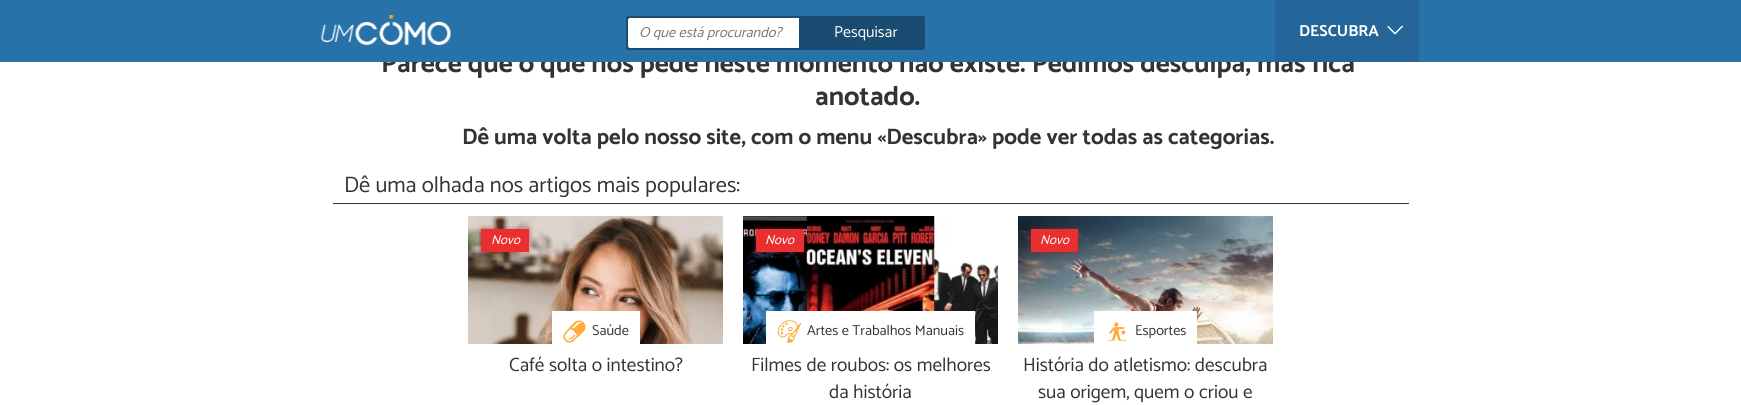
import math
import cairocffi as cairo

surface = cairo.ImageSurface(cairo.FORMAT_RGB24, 1741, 405)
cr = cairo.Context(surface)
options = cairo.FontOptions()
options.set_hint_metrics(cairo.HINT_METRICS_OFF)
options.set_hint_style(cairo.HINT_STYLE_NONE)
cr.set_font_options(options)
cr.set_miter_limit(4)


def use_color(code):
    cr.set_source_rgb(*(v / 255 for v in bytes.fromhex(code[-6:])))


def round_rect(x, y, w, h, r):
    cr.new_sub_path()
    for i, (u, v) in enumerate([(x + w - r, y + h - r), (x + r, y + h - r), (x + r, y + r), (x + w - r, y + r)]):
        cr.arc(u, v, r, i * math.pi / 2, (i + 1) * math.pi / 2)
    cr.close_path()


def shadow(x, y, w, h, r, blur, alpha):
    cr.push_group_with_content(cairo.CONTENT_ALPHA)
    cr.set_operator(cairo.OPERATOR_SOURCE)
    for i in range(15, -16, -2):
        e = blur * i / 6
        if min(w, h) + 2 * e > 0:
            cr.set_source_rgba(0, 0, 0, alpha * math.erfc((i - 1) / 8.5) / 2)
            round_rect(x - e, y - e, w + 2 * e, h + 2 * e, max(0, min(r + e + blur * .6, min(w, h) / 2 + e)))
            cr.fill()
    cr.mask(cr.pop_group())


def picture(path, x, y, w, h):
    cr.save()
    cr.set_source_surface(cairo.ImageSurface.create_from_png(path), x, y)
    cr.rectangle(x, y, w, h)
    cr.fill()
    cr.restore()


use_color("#ffffff")
cr.paint()
cr.select_font_face("Catamaran", cairo.FONT_SLANT_NORMAL, cairo.FONT_WEIGHT_BOLD)
cr.set_font_size(27.2)
use_color("#333333")
cr.move_to(381, 72)
cr.show_text("Parece que o que nos pede neste momento não existe. Pedimos desculpa, mas fica")
use_color("#2872aa")
cr.rectangle(0, 0, 1741, 62)
cr.fill()
picture("img1.png", 320, 15, 131, 30)
use_color("#1a4b70")
round_rect(626, 16, 299, 34, 2)
cr.fill()
use_color("#ffffff")
cr.new_path()
cr.move_to(630, 17)
cr.line_to(800, 17)
cr.line_to(800, 49)
cr.line_to(630, 49)
cr.curve_to(628.5, 49, 627, 47.5, 627, 46)
cr.line_to(627, 20)
cr.curve_to(627, 18.5, 628.5, 17, 630, 17)
cr.close_path()
cr.fill_preserve()
use_color("#1a4b70")
cr.stroke()
cr.select_font_face("Catamaran", cairo.FONT_SLANT_ITALIC)
cr.set_font_size(14.4)
use_color("#777777")
cr.move_to(639, 37)
cr.show_text("O que está procurando?")
cr.select_font_face("Catamaran")
cr.set_font_size(16)
use_color("#ffffff")
cr.move_to(834, 37)
cr.show_text("Pesquisar")
use_color("#246699")
cr.rectangle(1275, 0, 144, 62)
cr.fill()
cr.select_font_face("Catamaran", cairo.FONT_SLANT_NORMAL, cairo.FONT_WEIGHT_BOLD)
use_color("#ffffff")
cr.move_to(1299, 36)
cr.show_text("DESCUBRA")
picture("img2.png", 1387, 25, 16, 10)
cr.set_font_size(27.2)
use_color("#333333")
cr.move_to(815, 105)
cr.show_text("anotado.")
cr.set_font_size(22.4)
cr.move_to(462, 144)
cr.show_text("Dê uma volta pelo nosso site, com o menu «Descubra» pode ver todas as categorias.")
cr.rectangle(333, 203, 1076, 1)
cr.fill()
cr.select_font_face("Catamaran")
cr.move_to(344, 192)
cr.show_text("Dê uma olhada nos artigos mais populares:")
picture("img3.png", 468, 216, 255, 128)
use_color("#b31a1a")
shadow(481, 229, 48, 23, 0, 2.5, 0.5)
use_color("#e83030")
cr.rectangle(481, 229, 48, 23)
cr.fill()
cr.select_font_face("Catamaran", cairo.FONT_SLANT_ITALIC)
cr.set_font_size(13)
use_color("#ffffff")
cr.move_to(491, 244)
cr.show_text("Novo")
cr.rectangle(552, 311, 88, 33)
cr.fill()
picture("img4.png", 563, 320, 23, 23)
cr.select_font_face("Catamaran")
cr.set_font_size(14.4)
use_color("#333333")
cr.move_to(592, 335)
cr.show_text("Saúde")
cr.set_font_size(19.25)
cr.move_to(509, 371)
cr.show_text("Café solta o intestino?")
picture("img5.png", 743, 216, 255, 128)
use_color("#b31a1a")
shadow(756, 229, 48, 23, 0, 2.5, 0.5)
use_color("#e83030")
cr.rectangle(756, 229, 48, 23)
cr.fill()
cr.select_font_face("Catamaran", cairo.FONT_SLANT_ITALIC)
cr.set_font_size(13)
use_color("#ffffff")
cr.move_to(765, 244)
cr.show_text("Novo")
cr.rectangle(766, 311, 209, 33)
cr.fill()
picture("img6.png", 777, 320, 25, 23)
cr.select_font_face("Catamaran")
cr.set_font_size(14.4)
use_color("#333333")
cr.move_to(807, 335)
cr.show_text("Artes e Trabalhos Manuais")
cr.set_font_size(19.25)
cr.move_to(751, 371)
cr.show_text("Filmes de roubos: os melhores")
cr.move_to(829, 398)
cr.show_text("da história")
picture("img7.png", 1018, 216, 255, 128)
use_color("#b31a1a")
shadow(1031, 229, 47, 23, 0, 2.5, 0.5)
use_color("#e83030")
cr.rectangle(1031, 229, 47, 23)
cr.fill()
cr.select_font_face("Catamaran", cairo.FONT_SLANT_ITALIC)
cr.set_font_size(13)
use_color("#ffffff")
cr.move_to(1040, 244)
cr.show_text("Novo")
cr.rectangle(1094, 311, 103, 33)
cr.fill()
picture("img8.png", 1108, 322, 19, 19)
cr.select_font_face("Catamaran")
cr.set_font_size(14.4)
use_color("#333333")
cr.move_to(1135, 335)
cr.show_text("Esportes")
cr.set_font_size(19.25)
cr.move_to(1023, 371)
cr.show_text("História do atletismo: descubra")
cr.move_to(1038, 398)
cr.show_text("sua origem, quem o criou e")
surface.write_to_png("result.png")
